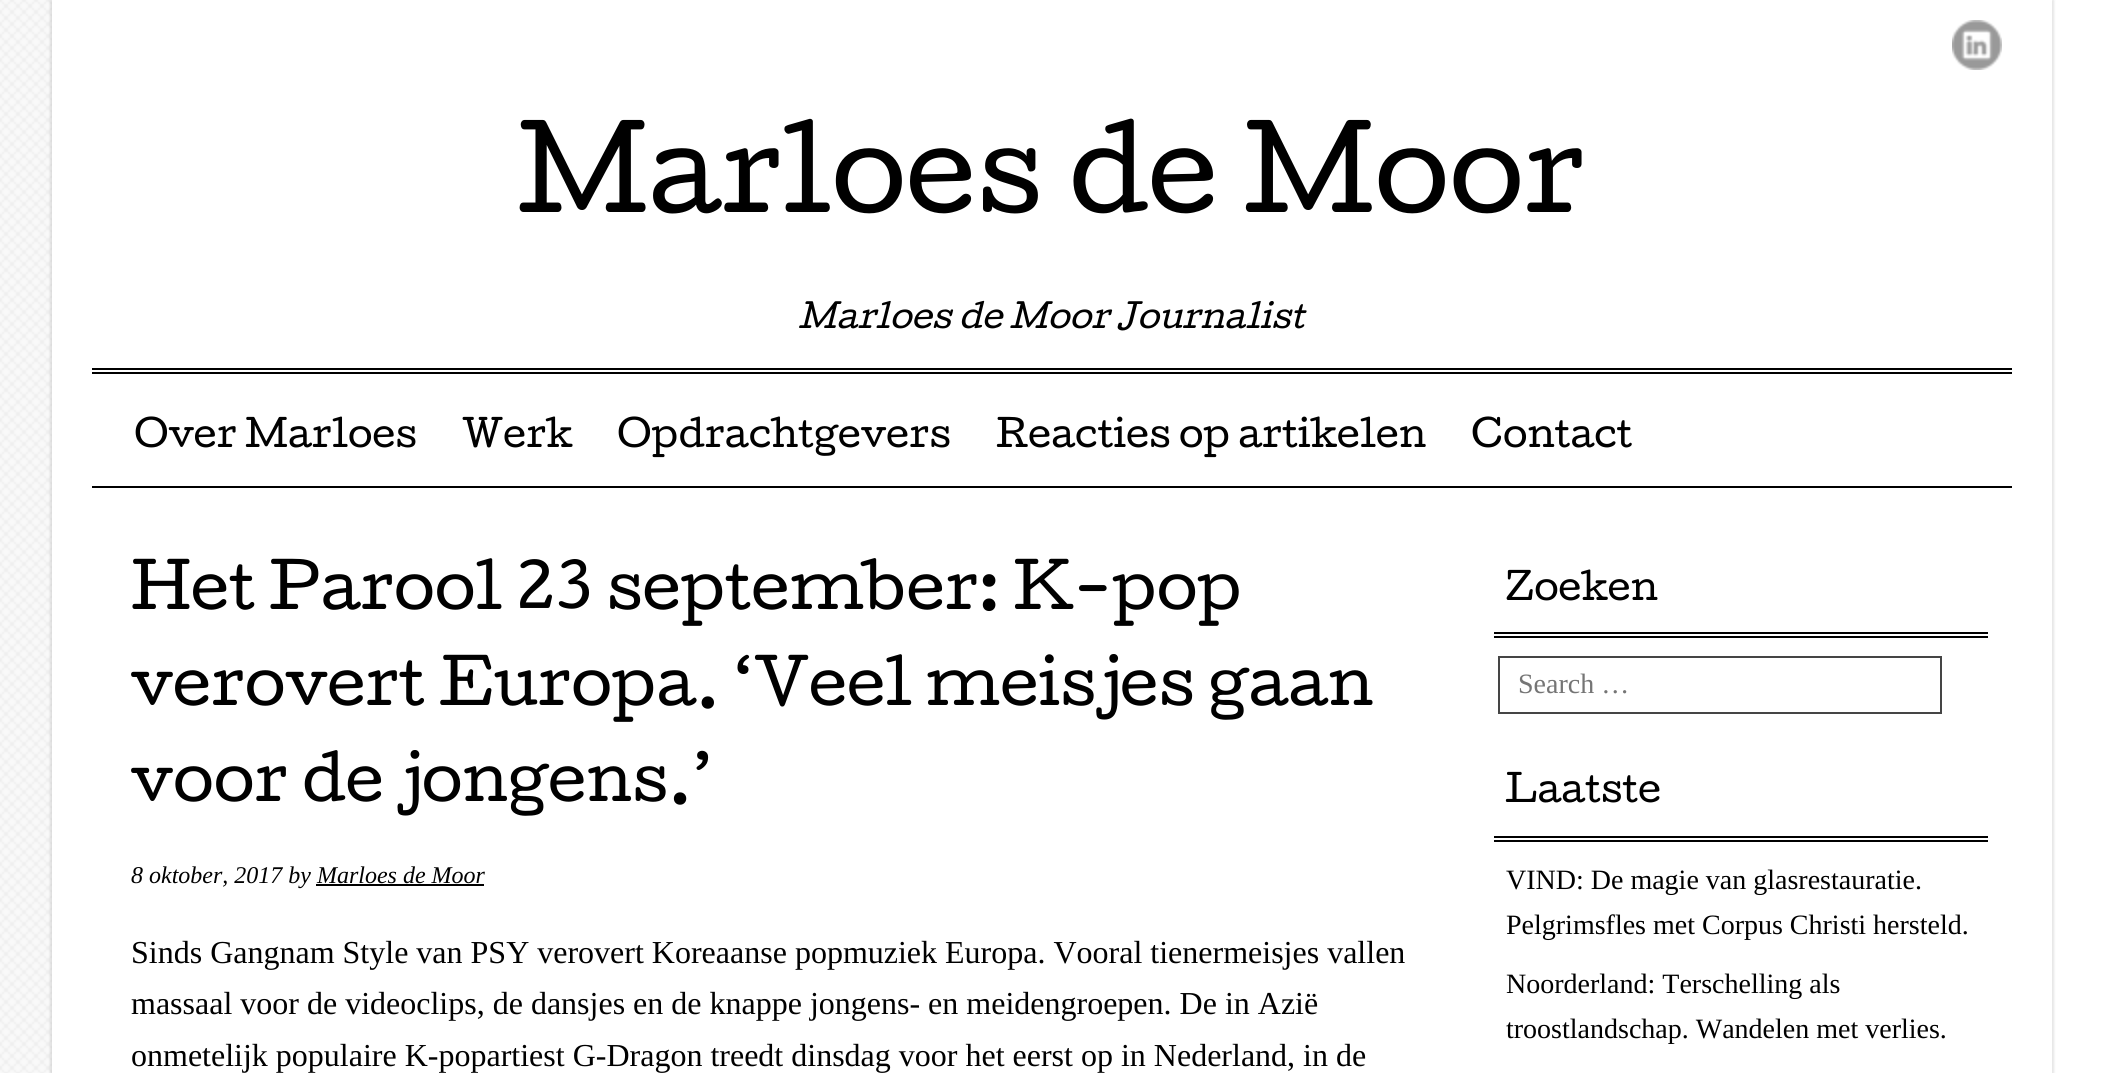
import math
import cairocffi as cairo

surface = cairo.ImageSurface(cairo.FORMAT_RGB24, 2101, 1073)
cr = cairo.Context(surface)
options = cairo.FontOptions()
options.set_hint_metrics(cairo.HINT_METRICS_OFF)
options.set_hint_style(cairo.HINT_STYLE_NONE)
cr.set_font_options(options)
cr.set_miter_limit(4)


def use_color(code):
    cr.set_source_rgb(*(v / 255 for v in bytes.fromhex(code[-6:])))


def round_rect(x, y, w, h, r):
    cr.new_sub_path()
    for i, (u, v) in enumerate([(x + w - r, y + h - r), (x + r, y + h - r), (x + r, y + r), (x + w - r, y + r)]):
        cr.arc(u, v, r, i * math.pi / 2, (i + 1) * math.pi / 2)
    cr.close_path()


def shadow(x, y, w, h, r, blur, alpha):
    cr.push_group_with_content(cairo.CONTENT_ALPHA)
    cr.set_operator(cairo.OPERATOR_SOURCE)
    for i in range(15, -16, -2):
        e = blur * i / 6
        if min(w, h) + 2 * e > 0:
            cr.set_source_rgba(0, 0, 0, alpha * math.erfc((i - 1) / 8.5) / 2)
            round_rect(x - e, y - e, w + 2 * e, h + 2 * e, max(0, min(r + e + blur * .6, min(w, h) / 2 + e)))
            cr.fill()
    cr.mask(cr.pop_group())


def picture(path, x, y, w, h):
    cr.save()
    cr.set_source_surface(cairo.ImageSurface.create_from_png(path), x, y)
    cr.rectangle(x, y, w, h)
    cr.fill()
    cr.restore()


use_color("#ffffff")
cr.paint()
picture("img1.png", 0, 0, 52, 1073)
use_color("#000000")
shadow(50, 0, 2004, 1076, 0, 1, 0.1)
use_color("#ffffff")
cr.rectangle(52, 0, 2000, 1073)
cr.fill()
use_color("#000000")
cr.rectangle(92, 486, 1920, 2)
cr.fill()
picture("img2.png", 1952, 20, 50, 50)
cr.rectangle(92, 368, 1920, 2)
cr.fill()
cr.rectangle(92, 372, 1920, 2)
cr.fill()
cr.select_font_face("Cutive")
cr.set_font_size(110)
cr.move_to(517, 212)
cr.show_text("Marloes de Moor")
cr.select_font_face("Cutive", cairo.FONT_SLANT_ITALIC)
cr.set_font_size(32)
cr.move_to(798, 328)
cr.show_text("Marloes de Moor Journalist")
cr.select_font_face("Cutive")
cr.set_font_size(36)
cr.move_to(134, 447)
cr.show_text("Over Marloes")
cr.move_to(462, 447)
cr.show_text("Werk")
cr.move_to(617, 447)
cr.show_text("Opdrachtgevers")
cr.move_to(996, 447)
cr.show_text("Reacties op artikelen")
cr.move_to(1471, 447)
cr.show_text("Contact")
cr.set_font_size(60)
cr.move_to(131, 609)
cr.show_text("Het Parool 23 september: K-pop")
cr.move_to(131, 705)
cr.show_text("verovert Europa. ‘Veel meisjes gaan")
cr.move_to(131, 801)
cr.show_text("voor de jongens.’")
cr.select_font_face("Liberation Serif", cairo.FONT_SLANT_ITALIC)
cr.set_font_size(24)
cr.move_to(131, 883)
cr.show_text("8 oktober, 2017 by Marloes de Moor")
cr.rectangle(316, 884, 168, 2)
cr.fill()
cr.select_font_face("Liberation Serif")
cr.set_font_size(32)
cr.move_to(131, 963)
cr.show_text("Sinds Gangnam Style van PSY verovert Koreaanse popmuziek Europa. Vooral tienermeisjes vallen")
cr.move_to(131, 1014)
cr.show_text("massaal voor de videoclips, de dansjes en de knappe jongens- en meidengroepen. De in Azië")
cr.move_to(131, 1066)
cr.show_text("onmetelijk populaire K-popartiest G-Dragon treedt dinsdag voor het eerst op in Nederland, in de")
cr.rectangle(1494, 632, 494, 2)
cr.fill()
cr.rectangle(1494, 636, 494, 2)
cr.fill()
cr.select_font_face("Cutive")
cr.set_font_size(36)
cr.move_to(1505, 600)
cr.show_text("Zoeken")
cr.rectangle(1499, 657, 442, 56)
use_color("#454545")
cr.stroke()
cr.select_font_face("Liberation Serif")
cr.set_font_size(28)
use_color("#757575")
cr.move_to(1518, 693)
cr.show_text("Search …")
use_color("#000000")
cr.rectangle(1494, 836, 494, 2)
cr.fill()
cr.rectangle(1494, 840, 494, 2)
cr.fill()
cr.select_font_face("Cutive")
cr.set_font_size(36)
cr.move_to(1505, 802)
cr.show_text("Laatste")
cr.select_font_face("Liberation Serif")
cr.set_font_size(28)
cr.move_to(1506, 889)
cr.show_text("VIND: De magie van glasrestauratie.")
cr.move_to(1506, 934)
cr.show_text("Pelgrimsfles met Corpus Christi hersteld.")
cr.move_to(1506, 993)
cr.show_text("Noorderland: Terschelling als")
cr.move_to(1506, 1038)
cr.show_text("troostlandschap. Wandelen met verlies.")
surface.write_to_png("result.png")
